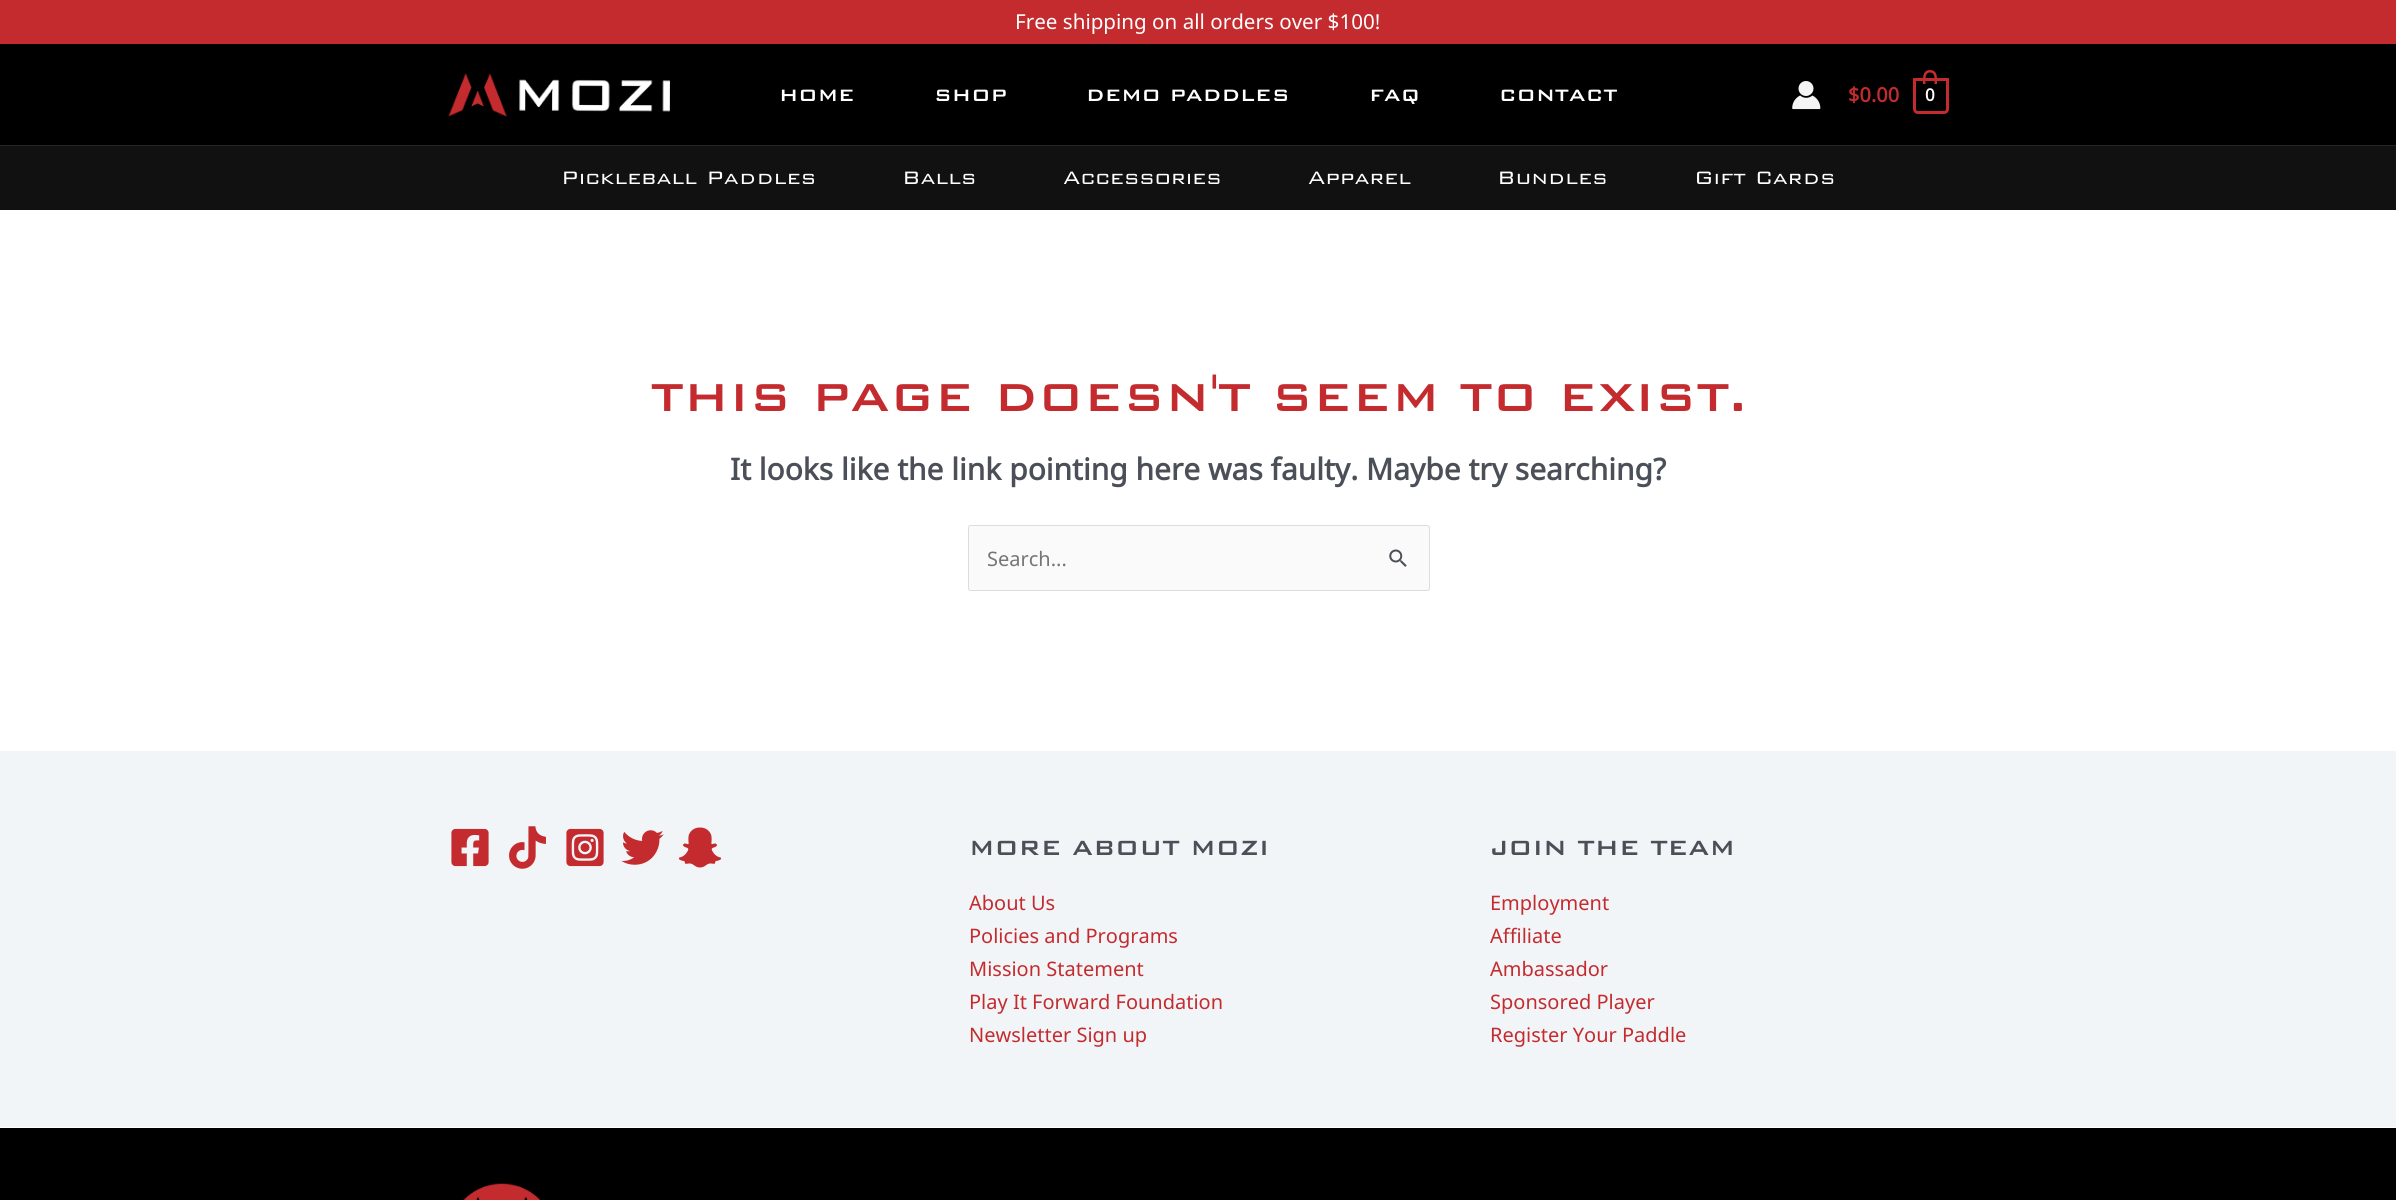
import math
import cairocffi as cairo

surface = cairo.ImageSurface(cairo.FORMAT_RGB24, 2396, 1200)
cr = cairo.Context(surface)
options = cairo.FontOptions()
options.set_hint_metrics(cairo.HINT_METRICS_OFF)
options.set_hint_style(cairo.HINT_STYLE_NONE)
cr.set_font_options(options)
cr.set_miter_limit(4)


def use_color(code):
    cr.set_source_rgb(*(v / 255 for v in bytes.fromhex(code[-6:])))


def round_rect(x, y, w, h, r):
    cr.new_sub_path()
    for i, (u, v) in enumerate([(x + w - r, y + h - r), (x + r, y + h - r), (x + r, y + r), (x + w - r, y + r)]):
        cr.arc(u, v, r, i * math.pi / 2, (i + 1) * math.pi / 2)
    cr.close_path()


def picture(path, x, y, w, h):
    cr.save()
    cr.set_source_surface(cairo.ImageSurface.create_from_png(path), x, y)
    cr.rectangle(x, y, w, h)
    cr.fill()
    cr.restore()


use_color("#ffffff")
cr.paint()
use_color("#c42b2f")
cr.rectangle(0, 0, 2396, 44)
cr.fill()
cr.select_font_face("Noto Sans")
cr.set_font_size(20.6)
use_color("#ffffff")
cr.move_to(1015, 29)
cr.show_text("Free shipping on all orders over $100!")
use_color("#000000")
cr.rectangle(0, 44, 2396, 101)
cr.fill()
use_color("#262626")
cr.rectangle(0, 145, 2396, 1)
cr.fill()
picture("img1.png", 448, 73, 222, 44)
cr.select_font_face("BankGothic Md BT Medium")
cr.set_font_size(22)
use_color("#ffffff")
cr.move_to(779, 101)
cr.show_text("HOME")
cr.move_to(934, 101)
cr.show_text("SHOP")
cr.move_to(1086, 101)
cr.show_text("DEMO PADDLES")
cr.move_to(1369, 101)
cr.show_text("FAQ")
cr.move_to(1499, 101)
cr.show_text("CONTACT")
picture("img2.png", 1792, 81, 29, 29)
cr.select_font_face("Noto Sans", cairo.FONT_SLANT_NORMAL, cairo.FONT_WEIGHT_BOLD)
cr.set_font_size(20)
use_color("#c42b2f")
cr.move_to(1848, 102)
cr.show_text("$0.00")
cr.new_path()
cr.move_to(1914.5, 79.5)
cr.line_to(1947.5, 79.5)
cr.line_to(1947.5, 109)
cr.curve_to(1947.5, 111, 1946, 112.5, 1944, 112.5)
cr.line_to(1918, 112.5)
cr.curve_to(1916, 112.5, 1914.5, 111, 1914.5, 109)
cr.close_path()
cr.set_line_width(3)
cr.stroke()
cr.set_fill_rule(cairo.FILL_RULE_EVEN_ODD)
cr.new_path()
cr.move_to(1930, 70)
cr.curve_to(1938, 70, 1937, 78.5, 1937, 84)
cr.line_to(1923, 84)
cr.curve_to(1923, 78.5, 1922, 70, 1930, 70)
cr.close_path()
cr.move_to(1930, 72.5)
cr.curve_to(1935.5, 72.5, 1934.5, 80, 1934.5, 84)
cr.line_to(1925.5, 84)
cr.curve_to(1925.5, 80, 1924.5, 72.5, 1930, 72.5)
cr.close_path()
cr.fill()
cr.set_font_size(17)
use_color("#ffffff")
cr.move_to(1925, 101)
cr.show_text("0")
use_color("#111111")
cr.rectangle(0, 146, 2396, 64)
cr.fill()
cr.select_font_face("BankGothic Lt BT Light")
cr.set_font_size(24)
use_color("#ffffff")
cr.move_to(561, 184)
cr.show_text("Pickleball Paddles")
cr.move_to(902, 184)
cr.show_text("Balls")
cr.move_to(1063, 184)
cr.show_text("Accessories")
cr.move_to(1308, 184)
cr.show_text("Apparel")
cr.move_to(1497, 184)
cr.show_text("Bundles")
cr.move_to(1694, 184)
cr.show_text("Gift Cards")
cr.select_font_face("BankGothic Md BT Medium")
cr.set_font_size(52)
use_color("#c42b2f")
cr.move_to(651, 411)
cr.show_text("THIS PAGE DOESN'T SEEM TO EXIST.")
cr.select_font_face("Noto Sans", cairo.FONT_SLANT_NORMAL, cairo.FONT_WEIGHT_BOLD)
cr.set_font_size(30)
use_color("#4b4f58")
cr.move_to(730, 480)
cr.show_text("It looks like the link pointing here was faulty. Maybe try searching?")
use_color("#fafafa")
round_rect(968.5, 525.5, 461, 65, 2)
cr.fill_preserve()
use_color("#dddddd")
cr.set_line_width(1)
cr.stroke()
cr.select_font_face("Noto Sans")
cr.set_font_size(20)
use_color("#757575")
cr.move_to(987, 566)
cr.show_text("Search...")
picture("img3.png", 1389, 549, 18, 18)
use_color("#f2f5f7")
cr.rectangle(0, 751, 2396, 376)
cr.fill()
picture("img4.png", 451, 828, 38, 39)
picture("img5.png", 509, 826, 37, 43)
picture("img6.png", 566, 828, 38, 39)
picture("img7.png", 621, 830, 43, 35)
picture("img8.png", 679, 827, 42, 41)
cr.select_font_face("BankGothic Md BT Medium")
cr.set_font_size(27.5)
use_color("#4b4f58")
cr.move_to(969, 855)
cr.show_text("MORE ABOUT MOZI")
cr.select_font_face("Noto Sans")
cr.set_font_size(20)
use_color("#c42b2f")
cr.move_to(969, 910)
cr.show_text("About Us")
cr.move_to(969, 943)
cr.show_text("Policies and Programs")
cr.move_to(969, 976)
cr.show_text("Mission Statement")
cr.move_to(969, 1009)
cr.show_text("Play It Forward Foundation")
cr.move_to(969, 1042)
cr.show_text("Newsletter Sign up")
cr.select_font_face("BankGothic Md BT Medium")
cr.set_font_size(27.5)
use_color("#4b4f58")
cr.move_to(1490, 855)
cr.show_text("JOIN THE TEAM")
cr.select_font_face("Noto Sans")
cr.set_font_size(20)
use_color("#c42b2f")
cr.move_to(1490, 910)
cr.show_text("Employment")
cr.move_to(1490, 943)
cr.show_text("Affiliate")
cr.move_to(1490, 976)
cr.show_text("Ambassador")
cr.move_to(1490, 1009)
cr.show_text("Sponsored Player")
cr.move_to(1490, 1042)
cr.show_text("Register Your Paddle")
use_color("#000000")
cr.rectangle(0, 1128, 2396, 72)
cr.fill()
picture("img9.png", 463, 1183, 78, 17)
surface.write_to_png("result.png")
